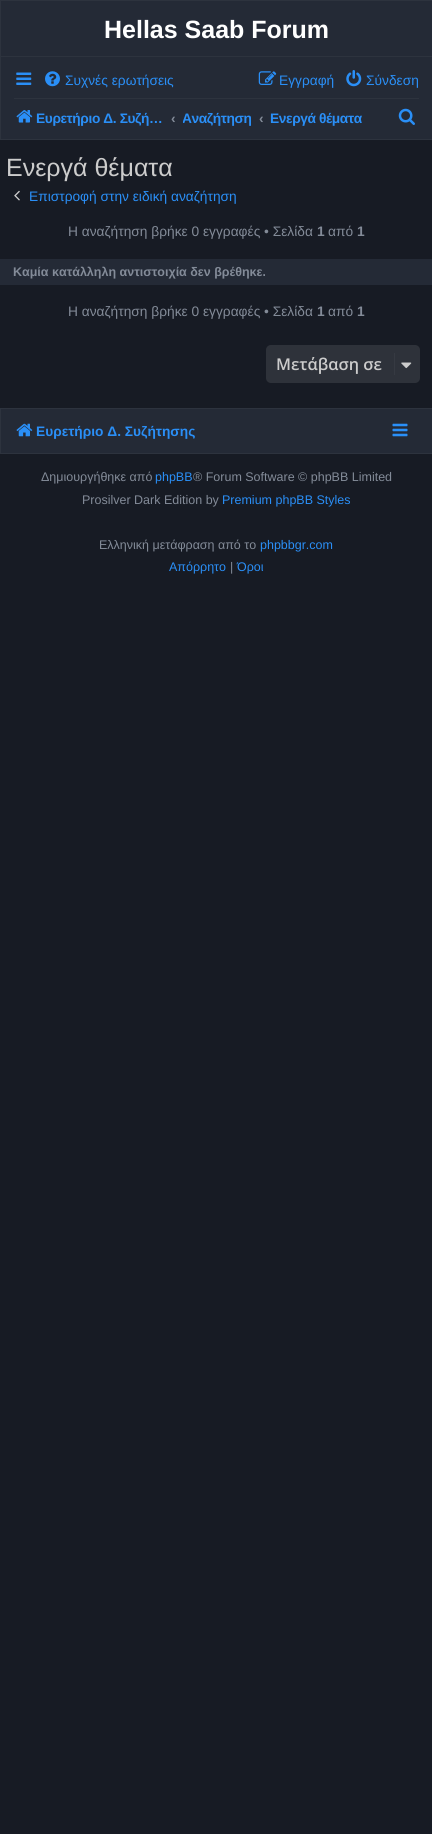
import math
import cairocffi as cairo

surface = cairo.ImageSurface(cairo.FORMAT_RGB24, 432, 1834)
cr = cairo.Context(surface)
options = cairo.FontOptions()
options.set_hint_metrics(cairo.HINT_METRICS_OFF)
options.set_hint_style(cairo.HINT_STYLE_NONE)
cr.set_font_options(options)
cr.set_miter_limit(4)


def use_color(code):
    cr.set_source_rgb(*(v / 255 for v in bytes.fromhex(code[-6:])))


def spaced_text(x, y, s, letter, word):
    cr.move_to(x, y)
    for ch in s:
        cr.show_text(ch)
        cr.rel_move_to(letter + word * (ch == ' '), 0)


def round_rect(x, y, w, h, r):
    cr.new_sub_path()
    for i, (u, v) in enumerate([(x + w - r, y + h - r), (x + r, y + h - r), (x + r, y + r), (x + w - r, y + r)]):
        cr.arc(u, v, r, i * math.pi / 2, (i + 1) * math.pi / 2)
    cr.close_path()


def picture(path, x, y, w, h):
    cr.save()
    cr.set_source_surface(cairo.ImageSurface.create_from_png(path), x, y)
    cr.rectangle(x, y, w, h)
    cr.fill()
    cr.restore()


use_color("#171b24")
cr.paint()
use_color("#242a36")
cr.rectangle(1, 1, 431, 55)
cr.fill()
cr.rectangle(0.5, 0.5, 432, 57)
use_color("#2d333e")
cr.set_line_width(1)
cr.stroke()
cr.select_font_face("Liberation Sans", cairo.FONT_SLANT_NORMAL, cairo.FONT_WEIGHT_BOLD)
cr.set_font_size(25)
use_color("#ffffff")
cr.move_to(104, 38)
cr.show_text("Hellas Saab Forum")
use_color("#242a36")
cr.rectangle(0.5, 56.5, 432, 83)
cr.fill_preserve()
use_color("#2d333e")
cr.stroke()
picture("img1.png", 16, 72, 16, 13)
picture("img2.png", 45, 71, 15, 16)
cr.select_font_face("Liberation Sans")
cr.set_font_size(13.75)
use_color("#2a8ff7")
cr.move_to(65, 85)
cr.show_text("Συχνές ερωτήσεις")
picture("img3.png", 258, 71, 19, 14)
cr.move_to(279, 85)
cr.show_text("Εγγραφή")
picture("img4.png", 346, 70, 16, 17)
cr.move_to(366, 85)
cr.show_text("Σύνδεση")
use_color("#2d333e")
cr.rectangle(14, 98, 405, 1)
cr.fill()
picture("img5.png", 16, 110, 17, 13)
cr.select_font_face("Liberation Sans", cairo.FONT_SLANT_NORMAL, cairo.FONT_WEIGHT_BOLD)
use_color("#2a8ff7")
spaced_text(36, 123, "Ευρετήριο Δ. Συζή…", -0.4, 0)
use_color("#838b98")
cr.move_to(171, 123)
cr.show_text("‹")
cr.save()
cr.rectangle(183, 103, 68, 30)
cr.clip()
use_color("#2a8ff7")
spaced_text(182, 123, "Αναζήτηση", -0.4, 0)
cr.restore()
cr.move_to(259, 123)
cr.show_text("‹")
use_color("#2a8ff7")
spaced_text(270, 123, "Ενεργά θέματα", -0.4, 0)
picture("img6.png", 398, 108, 17, 17)
cr.select_font_face("Liberation Sans")
cr.set_font_size(25)
use_color("#cccccc")
cr.move_to(6, 176)
cr.show_text("Ενεργά θέματα")
picture("img7.png", 14, 190, 6, 11)
cr.set_font_size(13.75)
use_color("#2a8ff7")
cr.move_to(29, 201)
cr.show_text("Επιστροφή στην ειδική αναζήτηση")
use_color("#838b98")
cr.move_to(68, 236)
cr.show_text("Η αναζήτηση βρήκε 0 εγγραφές • Σελίδα")
cr.select_font_face("Liberation Sans", cairo.FONT_SLANT_NORMAL, cairo.FONT_WEIGHT_BOLD)
cr.move_to(317, 236)
cr.show_text("1")
cr.select_font_face("Liberation Sans")
cr.move_to(328, 236)
cr.show_text("από")
cr.select_font_face("Liberation Sans", cairo.FONT_SLANT_NORMAL, cairo.FONT_WEIGHT_BOLD)
cr.move_to(357, 236)
cr.show_text("1")
use_color("#242a36")
cr.rectangle(0, 259, 432, 26)
cr.fill()
cr.set_font_size(12.5)
use_color("#838b98")
cr.move_to(13, 276)
cr.show_text("Καμία κατάλληλη αντιστοιχία δεν βρέθηκε.")
cr.select_font_face("Liberation Sans")
cr.set_font_size(13.75)
cr.move_to(68, 316)
cr.show_text("Η αναζήτηση βρήκε 0 εγγραφές • Σελίδα")
cr.select_font_face("Liberation Sans", cairo.FONT_SLANT_NORMAL, cairo.FONT_WEIGHT_BOLD)
cr.move_to(317, 316)
cr.show_text("1")
cr.select_font_face("Liberation Sans")
cr.move_to(328, 316)
cr.show_text("από")
cr.select_font_face("Liberation Sans", cairo.FONT_SLANT_NORMAL, cairo.FONT_WEIGHT_BOLD)
cr.move_to(357, 316)
cr.show_text("1")
use_color("#2e323a")
round_rect(266, 345, 154, 38, 5)
cr.fill()
cr.select_font_face("Open Sans SemiBold")
cr.set_font_size(16.25)
use_color("#cccccc")
cr.move_to(276, 370)
cr.show_text("Μετάβαση σε")
use_color("#363a42")
cr.rectangle(394, 353, 1, 22)
cr.fill()
picture("img8.png", 401, 362, 11, 7)
use_color("#242a36")
cr.rectangle(0.5, 408.5, 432, 45)
cr.fill_preserve()
use_color("#2d333e")
cr.stroke()
picture("img9.png", 16, 423, 17, 14)
cr.select_font_face("Liberation Sans", cairo.FONT_SLANT_NORMAL, cairo.FONT_WEIGHT_BOLD)
cr.set_font_size(13.75)
use_color("#2a8ff7")
cr.move_to(36, 436)
cr.show_text("Ευρετήριο Δ. Συζήτησης")
picture("img10.png", 392, 423, 16, 14)
cr.select_font_face("Liberation Sans")
cr.set_font_size(12.5)
use_color("#838b98")
cr.move_to(41, 481)
cr.show_text("Δημιουργήθηκε από")
use_color("#2a8ff7")
cr.move_to(155, 481)
cr.show_text("phpBB")
use_color("#838b98")
cr.move_to(193, 481)
cr.show_text("® Forum Software © phpBB Limited")
cr.move_to(82, 504)
cr.show_text("Prosilver Dark Edition by")
use_color("#2a8ff7")
cr.move_to(222, 504)
cr.show_text("Premium phpBB Styles")
use_color("#838b98")
cr.move_to(99, 549)
cr.show_text("Ελληνική μετάφραση από το")
use_color("#2a8ff7")
cr.move_to(260, 549)
cr.show_text("phpbbgr.com")
cr.move_to(169, 571)
cr.show_text("Απόρρητο")
use_color("#838b98")
cr.move_to(230, 571)
cr.show_text("|")
use_color("#2a8ff7")
cr.move_to(237, 571)
cr.show_text("Όροι")
surface.write_to_png("result.png")
